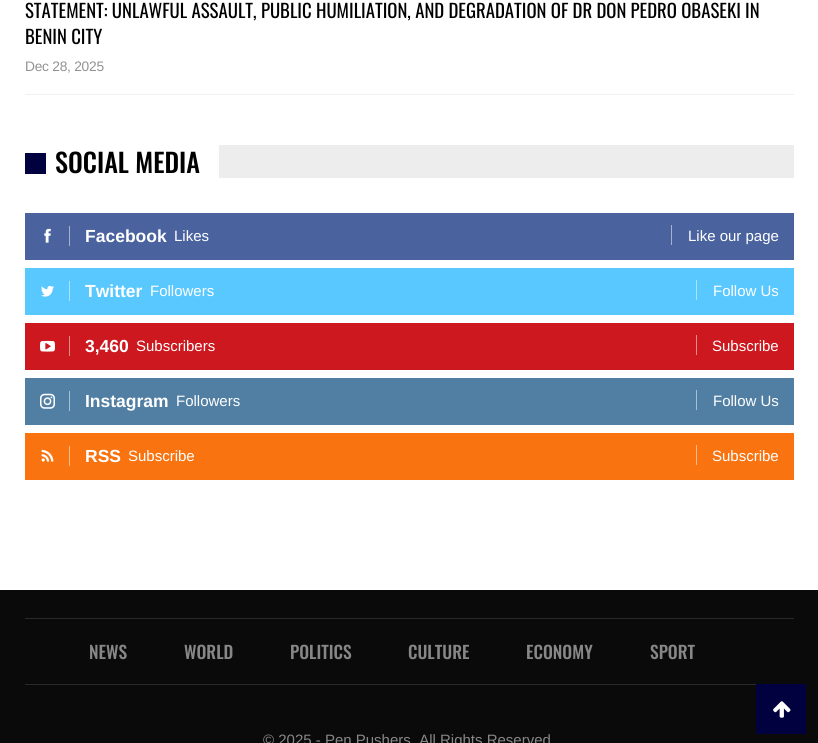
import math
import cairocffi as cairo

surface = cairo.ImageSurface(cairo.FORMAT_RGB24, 818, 743)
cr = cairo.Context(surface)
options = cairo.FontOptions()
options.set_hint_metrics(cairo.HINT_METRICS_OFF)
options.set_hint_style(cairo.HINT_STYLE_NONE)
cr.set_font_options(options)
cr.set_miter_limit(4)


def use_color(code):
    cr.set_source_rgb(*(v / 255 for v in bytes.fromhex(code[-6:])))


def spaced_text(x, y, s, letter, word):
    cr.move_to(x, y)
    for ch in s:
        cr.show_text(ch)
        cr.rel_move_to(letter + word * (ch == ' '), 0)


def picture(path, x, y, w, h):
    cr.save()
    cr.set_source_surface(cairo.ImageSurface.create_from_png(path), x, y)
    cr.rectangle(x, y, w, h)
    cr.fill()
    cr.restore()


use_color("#ffffff")
cr.paint()
use_color("#f0f0f0")
cr.rectangle(25, 94, 769, 1)
cr.fill()
cr.select_font_face("Oswald")
cr.set_font_size(18.75)
use_color("#000000")
cr.move_to(25, 18)
cr.show_text("STATEMENT: UNLAWFUL ASSAULT, PUBLIC HUMILIATION, AND DEGRADATION OF DR DON PEDRO OBASEKI IN")
cr.move_to(25, 44)
cr.show_text("BENIN CITY")
cr.select_font_face("Arimo")
cr.set_font_size(13.75)
use_color("#939292")
spaced_text(25, 71, "Dec 28, 2025", -0.25, 0)
use_color("#02013f")
cr.rectangle(25, 153, 21, 21)
cr.fill()
cr.select_font_face("Oswald Medium")
cr.set_font_size(26.25)
use_color("#000000")
cr.move_to(55, 173)
cr.show_text("SOCIAL MEDIA")
use_color("#ededed")
cr.rectangle(219, 145, 575, 33)
cr.fill()
use_color("#4a639f")
cr.rectangle(25, 213, 769, 47)
cr.fill()
picture("img1.png", 44, 228, 7, 15)
use_color("#a5b1cf")
cr.rectangle(69, 226, 1, 20)
cr.fill()
cr.select_font_face("Liberation Sans", cairo.FONT_SLANT_NORMAL, cairo.FONT_WEIGHT_BOLD)
cr.set_font_size(17.5)
use_color("#ffffff")
cr.move_to(85, 242)
cr.show_text("Facebook")
cr.select_font_face("Liberation Sans")
cr.set_font_size(15)
cr.move_to(174, 241)
cr.show_text("Likes")
use_color("#a5b1cf")
cr.rectangle(671, 225, 1, 20)
cr.fill()
use_color("#ffffff")
cr.move_to(688, 241)
cr.show_text("Like our page")
use_color("#59c8ff")
cr.rectangle(25, 268, 769, 47)
cr.fill()
picture("img2.png", 41, 285, 13, 12)
use_color("#ace4ff")
cr.rectangle(69, 281, 1, 20)
cr.fill()
cr.select_font_face("Liberation Sans", cairo.FONT_SLANT_NORMAL, cairo.FONT_WEIGHT_BOLD)
cr.set_font_size(17.5)
use_color("#ffffff")
cr.move_to(85, 297)
cr.show_text("Twitter")
cr.select_font_face("Liberation Sans")
cr.set_font_size(15)
cr.move_to(150, 296)
cr.show_text("Followers")
use_color("#ace4ff")
cr.rectangle(696, 280, 1, 20)
cr.fill()
use_color("#ffffff")
cr.move_to(713, 296)
cr.show_text("Follow Us")
use_color("#cc181e")
cr.rectangle(25, 323, 769, 47)
cr.fill()
picture("img3.png", 40, 340, 15, 12)
use_color("#e68c8f")
cr.rectangle(69, 336, 1, 20)
cr.fill()
cr.select_font_face("Liberation Sans", cairo.FONT_SLANT_NORMAL, cairo.FONT_WEIGHT_BOLD)
cr.set_font_size(17.5)
use_color("#ffffff")
cr.move_to(85, 352)
cr.show_text("3,460")
cr.select_font_face("Liberation Sans")
cr.set_font_size(15)
cr.move_to(136, 351)
cr.show_text("Subscribers")
use_color("#e68c8f")
cr.rectangle(696, 335, 1, 20)
cr.fill()
use_color("#ffffff")
cr.move_to(712, 351)
cr.show_text("Subscribe")
use_color("#517fa4")
cr.rectangle(25, 378, 769, 47)
cr.fill()
picture("img4.png", 40, 393, 15, 16)
use_color("#a8bfd2")
cr.rectangle(69, 391, 1, 20)
cr.fill()
cr.select_font_face("Liberation Sans", cairo.FONT_SLANT_NORMAL, cairo.FONT_WEIGHT_BOLD)
cr.set_font_size(17.5)
use_color("#ffffff")
cr.move_to(85, 407)
cr.show_text("Instagram")
cr.select_font_face("Liberation Sans")
cr.set_font_size(15)
cr.move_to(176, 406)
cr.show_text("Followers")
use_color("#a8bfd2")
cr.rectangle(696, 390, 1, 20)
cr.fill()
use_color("#ffffff")
cr.move_to(713, 406)
cr.show_text("Follow Us")
use_color("#f97410")
cr.rectangle(25, 433, 769, 47)
cr.fill()
picture("img5.png", 41, 449, 13, 13)
use_color("#fcba88")
cr.rectangle(69, 446, 1, 20)
cr.fill()
cr.select_font_face("Liberation Sans", cairo.FONT_SLANT_NORMAL, cairo.FONT_WEIGHT_BOLD)
cr.set_font_size(17.5)
use_color("#ffffff")
cr.move_to(85, 462)
cr.show_text("RSS")
cr.select_font_face("Liberation Sans")
cr.set_font_size(15)
cr.move_to(128, 461)
cr.show_text("Subscribe")
use_color("#fcba88")
cr.rectangle(696, 445, 1, 20)
cr.fill()
use_color("#ffffff")
cr.move_to(712, 461)
cr.show_text("Subscribe")
use_color("#0a0a0a")
cr.rectangle(0, 590, 818, 153)
cr.fill()
use_color("#2a2a2a")
cr.rectangle(25, 618, 769, 1)
cr.fill()
cr.rectangle(25, 684, 731, 1)
cr.fill()
cr.select_font_face("Oswald Medium")
cr.set_font_size(17.5)
use_color("#878787")
cr.move_to(89, 659)
cr.show_text("NEWS")
cr.move_to(184, 659)
cr.show_text("WORLD")
cr.move_to(290, 659)
cr.show_text("POLITICS")
cr.move_to(408, 659)
cr.show_text("CULTURE")
cr.move_to(526, 659)
cr.show_text("ECONOMY")
cr.move_to(650, 659)
cr.show_text("SPORT")
cr.select_font_face("Arimo")
cr.set_font_size(15)
cr.move_to(263, 745)
cr.show_text("© 2025 - Pen Pushers. All Rights Reserved")
use_color("#02013f")
cr.rectangle(756, 684, 50, 50)
cr.fill()
picture("img6.png", 773, 701, 18, 17)
surface.write_to_png("result.png")
